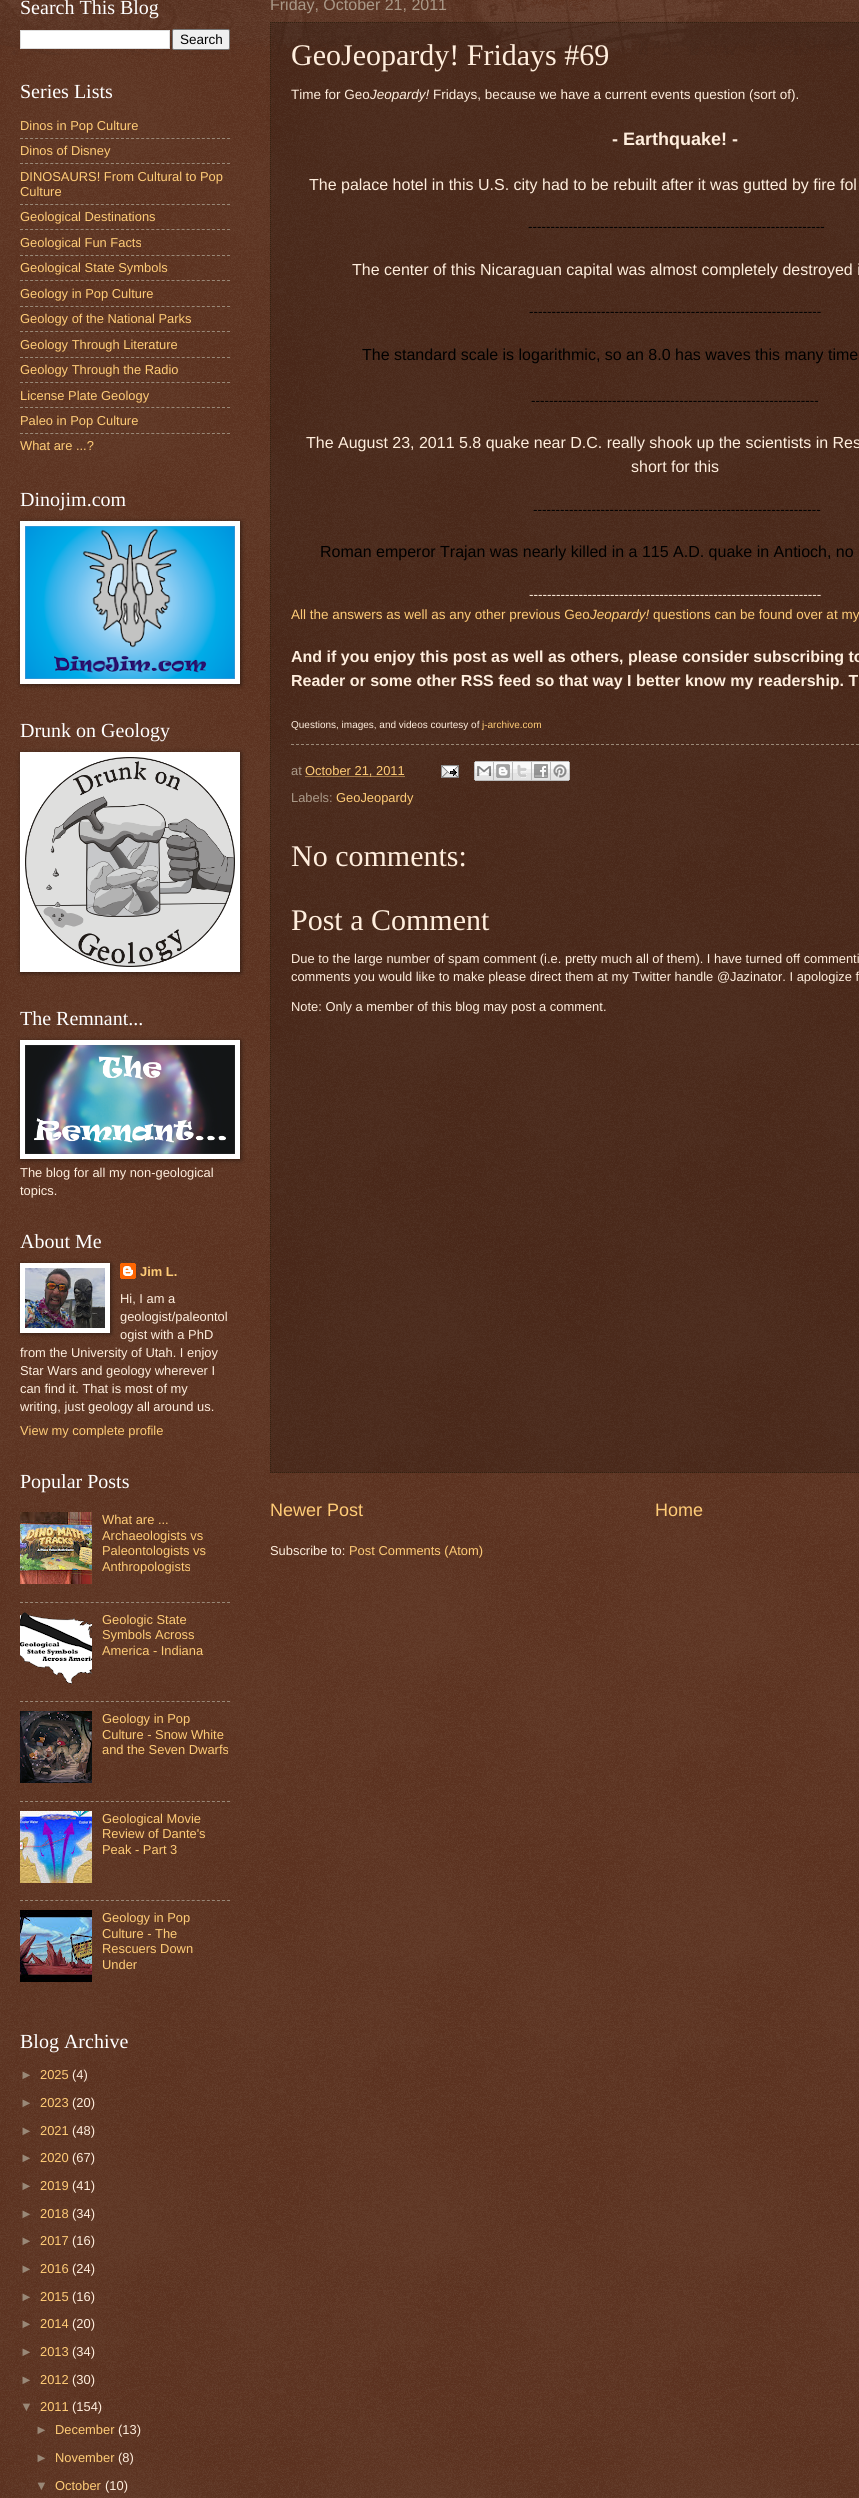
import math
import cairocffi as cairo

surface = cairo.ImageSurface(cairo.FORMAT_RGB24, 859, 2498)
cr = cairo.Context(surface)
options = cairo.FontOptions()
options.set_hint_metrics(cairo.HINT_METRICS_OFF)
options.set_hint_style(cairo.HINT_STYLE_NONE)
cr.set_font_options(options)
cr.set_miter_limit(4)


def use_color(code):
    cr.set_source_rgb(*(v / 255 for v in bytes.fromhex(code[-6:])))


def round_rect(x, y, w, h, r):
    cr.new_sub_path()
    for i, (u, v) in enumerate([(x + w - r, y + h - r), (x + r, y + h - r), (x + r, y + r), (x + w - r, y + r)]):
        cr.arc(u, v, r, i * math.pi / 2, (i + 1) * math.pi / 2)
    cr.close_path()


def shadow(x, y, w, h, r, blur, alpha):
    cr.push_group_with_content(cairo.CONTENT_ALPHA)
    cr.set_operator(cairo.OPERATOR_SOURCE)
    for i in range(15, -16, -2):
        e = blur * i / 6
        if min(w, h) + 2 * e > 0:
            cr.set_source_rgba(0, 0, 0, alpha * math.erfc((i - 1) / 8.5) / 2)
            round_rect(x - e, y - e, w + 2 * e, h + 2 * e, max(0, min(r + e + blur * .6, min(w, h) / 2 + e)))
            cr.fill()
    cr.mask(cr.pop_group())


def picture(path, x, y, w, h):
    cr.save()
    cr.set_source_surface(cairo.ImageSurface.create_from_png(path), x, y)
    cr.rectangle(x, y, w, h)
    cr.fill()
    cr.restore()


use_color("#441500")
cr.paint()
picture("img1.png", 0, 0, 859, 2498)
picture("img2.png", 0, 0, 859, 55)
cr.select_font_face("Liberation Serif")
cr.set_font_size(20)
use_color("#ffffff")
cr.move_to(20, 14)
cr.show_text("Search This Blog")
cr.rectangle(20.5, 30.5, 149, 18)
cr.fill_preserve()
use_color("#dddddd")
cr.set_line_width(1)
cr.stroke()
use_color("#efefef")
round_rect(172.5, 29.5, 57, 20, 1.5)
cr.fill_preserve()
use_color("#767676")
cr.stroke()
cr.select_font_face("Liberation Sans")
cr.set_font_size(13.5)
use_color("#000000")
cr.move_to(180, 44)
cr.show_text("Search")
cr.select_font_face("Liberation Serif")
cr.set_font_size(20)
use_color("#ffffff")
cr.move_to(20, 98)
cr.show_text("Series Lists")
cr.select_font_face("Liberation Sans")
cr.set_font_size(12.9)
use_color("#ffcc77")
cr.move_to(20, 130)
cr.show_text("Dinos in Pop Culture")
cr.new_path()
cr.move_to(20, 138.5)
cr.line_to(230, 138.5)
use_color("#998877")
cr.set_dash([3, 2.05])
cr.stroke()
use_color("#ffcc77")
cr.move_to(20, 155)
cr.show_text("Dinos of Disney")
cr.new_path()
cr.move_to(20, 163.5)
cr.line_to(230, 163.5)
use_color("#998877")
cr.stroke()
use_color("#ffcc77")
cr.move_to(20, 181)
cr.show_text("DINOSAURS! From Cultural to Pop")
cr.move_to(20, 196)
cr.show_text("Culture")
cr.new_path()
cr.move_to(20, 204.5)
cr.line_to(230, 204.5)
use_color("#998877")
cr.stroke()
use_color("#ffcc77")
cr.move_to(20, 221)
cr.show_text("Geological Destinations")
cr.new_path()
cr.move_to(20, 229.5)
cr.line_to(230, 229.5)
use_color("#998877")
cr.stroke()
use_color("#ffcc77")
cr.move_to(20, 247)
cr.show_text("Geological Fun Facts")
cr.new_path()
cr.move_to(20, 255.5)
cr.line_to(230, 255.5)
use_color("#998877")
cr.stroke()
use_color("#ffcc77")
cr.move_to(20, 272)
cr.show_text("Geological State Symbols")
cr.new_path()
cr.move_to(20, 280.5)
cr.line_to(230, 280.5)
use_color("#998877")
cr.stroke()
use_color("#ffcc77")
cr.move_to(20, 298)
cr.show_text("Geology in Pop Culture")
cr.new_path()
cr.move_to(20, 306.5)
cr.line_to(230, 306.5)
use_color("#998877")
cr.stroke()
use_color("#ffcc77")
cr.move_to(20, 323)
cr.show_text("Geology of the National Parks")
cr.new_path()
cr.move_to(20, 331.5)
cr.line_to(230, 331.5)
use_color("#998877")
cr.stroke()
use_color("#ffcc77")
cr.move_to(20, 349)
cr.show_text("Geology Through Literature")
cr.new_path()
cr.move_to(20, 357.5)
cr.line_to(230, 357.5)
use_color("#998877")
cr.stroke()
use_color("#ffcc77")
cr.move_to(20, 374)
cr.show_text("Geology Through the Radio")
cr.new_path()
cr.move_to(20, 382.5)
cr.line_to(230, 382.5)
use_color("#998877")
cr.stroke()
use_color("#ffcc77")
cr.move_to(20, 400)
cr.show_text("License Plate Geology")
cr.new_path()
cr.move_to(20, 407.5)
cr.line_to(230, 407.5)
use_color("#998877")
cr.stroke()
use_color("#ffcc77")
cr.move_to(20, 425)
cr.show_text("Paleo in Pop Culture")
cr.new_path()
cr.move_to(20, 433.5)
cr.line_to(230, 433.5)
use_color("#998877")
cr.stroke()
use_color("#ffcc77")
cr.move_to(20, 450)
cr.show_text("What are ...?")
cr.select_font_face("Liberation Serif")
cr.set_font_size(20)
use_color("#ffffff")
cr.move_to(20, 506)
cr.show_text("Dinojim.com")
use_color("#000000")
shadow(21, 522, 220, 163, 0, 2.5, 0.5)
use_color("#ffffff")
cr.rectangle(20, 521, 220, 163)
cr.fill()
picture("img3.png", 25, 526, 210, 153)
cr.move_to(20, 737)
cr.show_text("Drunk on Geology")
use_color("#000000")
shadow(21, 753, 220, 220, 0, 2.5, 0.5)
use_color("#ffffff")
cr.rectangle(20, 752, 220, 220)
cr.fill()
picture("img4.png", 25, 757, 210, 210)
cr.move_to(20, 1025)
cr.show_text("The Remnant...")
use_color("#000000")
shadow(21, 1041, 220, 119, 0, 2.5, 0.5)
use_color("#ffffff")
cr.rectangle(20, 1040, 220, 119)
cr.fill()
picture("img5.png", 25, 1045, 210, 109)
cr.select_font_face("Liberation Sans")
cr.set_font_size(12.9)
use_color("#ffeedd")
cr.move_to(20, 1177)
cr.show_text("The blog for all my non-geological")
cr.move_to(20, 1195)
cr.show_text("topics.")
cr.select_font_face("Liberation Serif")
cr.set_font_size(20)
use_color("#ffffff")
cr.move_to(20, 1248)
cr.show_text("About Me")
use_color("#000000")
shadow(21, 1264, 90, 70, 0, 2.5, 0.5)
use_color("#ffffff")
cr.rectangle(20, 1263, 90, 70)
cr.fill()
picture("img6.png", 25, 1268, 80, 60)
picture("img7.png", 120, 1263, 16, 16)
cr.select_font_face("Liberation Sans", cairo.FONT_SLANT_NORMAL, cairo.FONT_WEIGHT_BOLD)
cr.set_font_size(12.9)
use_color("#ffcc77")
cr.move_to(140, 1276)
cr.show_text("Jim L.")
cr.select_font_face("Liberation Sans")
use_color("#ffeedd")
cr.move_to(120, 1303)
cr.show_text("Hi, I am a")
cr.move_to(120, 1321)
cr.show_text("geologist/paleontol")
cr.move_to(120, 1339)
cr.show_text("ogist with a PhD")
cr.move_to(20, 1357)
cr.show_text("from the University of Utah. I enjoy")
cr.move_to(20, 1375)
cr.show_text("Star Wars and geology wherever I")
cr.move_to(20, 1393)
cr.show_text("can find it. That is most of my")
cr.move_to(20, 1411)
cr.show_text("writing, just geology all around us.")
use_color("#ffcc77")
cr.move_to(20, 1435)
cr.show_text("View my complete profile")
cr.select_font_face("Liberation Serif")
cr.set_font_size(20)
use_color("#ffffff")
cr.move_to(20, 1488)
cr.show_text("Popular Posts")
picture("img8.png", 20, 1512, 72, 72)
cr.select_font_face("Liberation Sans")
cr.set_font_size(12.9)
use_color("#ffcc77")
cr.move_to(102, 1524)
cr.show_text("What are ...")
cr.move_to(102, 1540)
cr.show_text("Archaeologists vs")
cr.move_to(102, 1555)
cr.show_text("Paleontologists vs")
cr.move_to(102, 1571)
cr.show_text("Anthropologists")
cr.new_path()
cr.move_to(20, 1602.5)
cr.line_to(230, 1602.5)
use_color("#998877")
cr.stroke()
picture("img9.png", 20, 1612, 72, 72)
use_color("#ffcc77")
cr.move_to(102, 1624)
cr.show_text("Geologic State")
cr.move_to(102, 1639)
cr.show_text("Symbols Across")
cr.move_to(102, 1655)
cr.show_text("America - Indiana")
cr.new_path()
cr.move_to(20, 1701.5)
cr.line_to(230, 1701.5)
use_color("#998877")
cr.stroke()
picture("img10.png", 20, 1711, 72, 72)
use_color("#ffcc77")
cr.move_to(102, 1723)
cr.show_text("Geology in Pop")
cr.move_to(102, 1739)
cr.show_text("Culture - Snow White")
cr.move_to(102, 1754)
cr.show_text("and the Seven Dwarfs")
cr.new_path()
cr.move_to(20, 1801.5)
cr.line_to(230, 1801.5)
use_color("#998877")
cr.stroke()
picture("img11.png", 20, 1811, 72, 72)
use_color("#ffcc77")
cr.move_to(102, 1823)
cr.show_text("Geological Movie")
cr.move_to(102, 1838)
cr.show_text("Review of Dante's")
cr.move_to(102, 1854)
cr.show_text("Peak - Part 3")
cr.new_path()
cr.move_to(20, 1900.5)
cr.line_to(230, 1900.5)
use_color("#998877")
cr.stroke()
picture("img12.png", 20, 1910, 72, 72)
use_color("#ffcc77")
cr.move_to(102, 1922)
cr.show_text("Geology in Pop")
cr.move_to(102, 1938)
cr.show_text("Culture - The")
cr.move_to(102, 1953)
cr.show_text("Rescuers Down")
cr.move_to(102, 1969)
cr.show_text("Under")
cr.select_font_face("Liberation Serif")
cr.set_font_size(20)
use_color("#ffffff")
cr.move_to(20, 2048)
cr.show_text("Blog Archive")
cr.select_font_face("Liberation Sans")
cr.set_font_size(12.9)
use_color("#998877")
cr.move_to(20, 2079)
cr.show_text("►")
use_color("#ffcc77")
cr.move_to(40, 2079)
cr.show_text("2025")
use_color("#ffeedd")
cr.move_to(72, 2079)
cr.show_text("(4)")
use_color("#998877")
cr.move_to(20, 2107)
cr.show_text("►")
use_color("#ffcc77")
cr.move_to(40, 2107)
cr.show_text("2023")
use_color("#ffeedd")
cr.move_to(72, 2107)
cr.show_text("(20)")
use_color("#998877")
cr.move_to(20, 2135)
cr.show_text("►")
use_color("#ffcc77")
cr.move_to(40, 2135)
cr.show_text("2021")
use_color("#ffeedd")
cr.move_to(72, 2135)
cr.show_text("(48)")
use_color("#998877")
cr.move_to(20, 2162)
cr.show_text("►")
use_color("#ffcc77")
cr.move_to(40, 2162)
cr.show_text("2020")
use_color("#ffeedd")
cr.move_to(72, 2162)
cr.show_text("(67)")
use_color("#998877")
cr.move_to(20, 2190)
cr.show_text("►")
use_color("#ffcc77")
cr.move_to(40, 2190)
cr.show_text("2019")
use_color("#ffeedd")
cr.move_to(72, 2190)
cr.show_text("(41)")
use_color("#998877")
cr.move_to(20, 2218)
cr.show_text("►")
use_color("#ffcc77")
cr.move_to(40, 2218)
cr.show_text("2018")
use_color("#ffeedd")
cr.move_to(72, 2218)
cr.show_text("(34)")
use_color("#998877")
cr.move_to(20, 2245)
cr.show_text("►")
use_color("#ffcc77")
cr.move_to(40, 2245)
cr.show_text("2017")
use_color("#ffeedd")
cr.move_to(72, 2245)
cr.show_text("(16)")
use_color("#998877")
cr.move_to(20, 2273)
cr.show_text("►")
use_color("#ffcc77")
cr.move_to(40, 2273)
cr.show_text("2016")
use_color("#ffeedd")
cr.move_to(72, 2273)
cr.show_text("(24)")
use_color("#998877")
cr.move_to(20, 2301)
cr.show_text("►")
use_color("#ffcc77")
cr.move_to(40, 2301)
cr.show_text("2015")
use_color("#ffeedd")
cr.move_to(72, 2301)
cr.show_text("(16)")
use_color("#998877")
cr.move_to(20, 2328)
cr.show_text("►")
use_color("#ffcc77")
cr.move_to(40, 2328)
cr.show_text("2014")
use_color("#ffeedd")
cr.move_to(72, 2328)
cr.show_text("(20)")
use_color("#998877")
cr.move_to(20, 2356)
cr.show_text("►")
use_color("#ffcc77")
cr.move_to(40, 2356)
cr.show_text("2013")
use_color("#ffeedd")
cr.move_to(72, 2356)
cr.show_text("(34)")
use_color("#998877")
cr.move_to(20, 2384)
cr.show_text("►")
use_color("#ffcc77")
cr.move_to(40, 2384)
cr.show_text("2012")
use_color("#ffeedd")
cr.move_to(72, 2384)
cr.show_text("(30)")
use_color("#998877")
cr.move_to(20, 2411)
cr.show_text("▼")
use_color("#ffcc77")
cr.move_to(40, 2411)
cr.show_text("2011")
use_color("#ffeedd")
cr.move_to(72, 2411)
cr.show_text("(154)")
use_color("#998877")
cr.move_to(35, 2434)
cr.show_text("►")
use_color("#ffcc77")
cr.move_to(55, 2434)
cr.show_text("December")
use_color("#ffeedd")
cr.move_to(118, 2434)
cr.show_text("(13)")
use_color("#998877")
cr.move_to(35, 2462)
cr.show_text("►")
use_color("#ffcc77")
cr.move_to(55, 2462)
cr.show_text("November")
use_color("#ffeedd")
cr.move_to(118, 2462)
cr.show_text("(8)")
use_color("#998877")
cr.move_to(35, 2490)
cr.show_text("▼")
use_color("#ffcc77")
cr.move_to(55, 2490)
cr.show_text("October")
use_color("#ffeedd")
cr.move_to(105, 2490)
cr.show_text("(10)")
cr.set_font_size(16)
use_color("#aa9988")
cr.move_to(270, 10)
cr.show_text("Friday, October 21, 2011")
cr.set_source_rgba(0, 0, 0, 0.2)
cr.rectangle(270, 22, 589, 1451)
cr.fill()
cr.new_path()
cr.move_to(270, 22.5)
cr.line_to(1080, 22.5)
use_color("#332211")
cr.set_dash([1, 1])
cr.stroke()
cr.new_path()
cr.move_to(270, 1472.5)
cr.line_to(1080, 1472.5)
cr.stroke()
cr.new_path()
cr.move_to(270.5, 22)
cr.line_to(270.5, 1473)
cr.stroke()
cr.select_font_face("Liberation Serif")
cr.set_font_size(30)
use_color("#ffeedd")
cr.move_to(291, 65)
cr.show_text("GeoJeopardy! Fridays #69")
cr.select_font_face("Liberation Sans")
cr.set_font_size(13.5)
cr.move_to(291, 99)
cr.show_text("Time for Geo")
cr.select_font_face("Liberation Sans", cairo.FONT_SLANT_ITALIC)
cr.move_to(370, 99)
cr.show_text("Jeopardy!")
cr.select_font_face("Liberation Sans")
cr.move_to(433, 99)
cr.show_text("Fridays, because we have a current events question (sort of).")
cr.select_font_face("Liberation Sans", cairo.FONT_SLANT_NORMAL, cairo.FONT_WEIGHT_BOLD)
cr.set_font_size(18)
cr.move_to(612, 145)
cr.show_text("- Earthquake! -")
cr.select_font_face("Liberation Sans")
cr.set_font_size(16)
cr.move_to(309, 190)
cr.show_text("The palace hotel in this U.S. city had to be rebuilt after it was gutted by fire fol")
cr.set_font_size(13.5)
use_color("#000000")
cr.move_to(528, 231)
cr.show_text("------------------------------------------------------------------")
cr.set_font_size(16)
use_color("#ffeedd")
cr.move_to(352, 275)
cr.show_text("The center of this Nicaraguan capital was almost completely destroyed i")
cr.set_font_size(13.5)
use_color("#000000")
cr.move_to(529, 316)
cr.show_text("-----------------------------------------------------------------")
cr.set_font_size(16)
cr.move_to(362, 360)
cr.show_text("The standard scale is logarithmic, so an 8.0 has waves this many time")
cr.set_font_size(13.5)
cr.move_to(531, 405)
cr.show_text("----------------------------------------------------------------")
cr.set_font_size(16)
use_color("#ffeedd")
cr.move_to(306, 448)
cr.show_text("The August 23, 2011 5.8 quake near D.C. really shook up the scientists in Res")
cr.move_to(631, 472)
cr.show_text("short for this")
cr.set_font_size(13.5)
use_color("#000000")
cr.move_to(533, 514)
cr.show_text("----------------------------------------------------------------")
cr.set_font_size(16)
cr.move_to(320, 557)
cr.show_text("Roman emperor Trajan was nearly killed in a 115 A.D. quake in Antioch, no")
cr.set_font_size(13.5)
use_color("#ffeedd")
cr.move_to(529, 599)
cr.show_text("-----------------------------------------------------------------")
use_color("#ffcc77")
cr.move_to(291, 619)
cr.show_text("All the answers as well as any other previous Geo")
cr.select_font_face("Liberation Sans", cairo.FONT_SLANT_ITALIC)
cr.move_to(590, 619)
cr.show_text("Jeopardy!")
cr.select_font_face("Liberation Sans")
cr.move_to(653, 619)
cr.show_text("questions can be found over at my")
cr.select_font_face("Liberation Sans", cairo.FONT_SLANT_NORMAL, cairo.FONT_WEIGHT_BOLD)
cr.set_font_size(16)
use_color("#ffeedd")
cr.move_to(291, 662)
cr.show_text("And if you enjoy this post as well as others, please consider subscribing to")
cr.move_to(291, 686)
cr.show_text("Reader or some other RSS feed so that way I better know my readership. T")
cr.select_font_face("Liberation Sans")
cr.set_font_size(10)
cr.move_to(291, 728)
cr.show_text("Questions, images, and videos courtesy of")
use_color("#ffcc77")
cr.move_to(482, 728)
cr.show_text("j-archive.com")
cr.new_path()
cr.move_to(291, 744.5)
cr.line_to(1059, 744.5)
use_color("#998877")
cr.set_dash([3, 2])
cr.stroke()
cr.set_font_size(12.9)
use_color("#aa9988")
cr.move_to(291, 775)
cr.show_text("at")
cr.new_path()
cr.move_to(305.5, 776.5)
cr.line_to(405, 776.5)
use_color("#ffcc77")
cr.set_dash([1, 1])
cr.stroke()
cr.move_to(305, 775)
cr.show_text("October 21, 2011")
picture("img13.png", 441, 765, 18, 13)
picture("img14.png", 474, 761, 20, 20)
picture("img15.png", 494, 761, 19, 20)
picture("img16.png", 513, 761, 19, 20)
picture("img17.png", 532, 761, 19, 20)
picture("img18.png", 551, 761, 19, 20)
use_color("#aa9988")
cr.move_to(291, 802)
cr.show_text("Labels:")
use_color("#ffcc77")
cr.move_to(336, 802)
cr.show_text("GeoJeopardy")
cr.select_font_face("Liberation Serif")
cr.set_font_size(30)
use_color("#ffeedd")
cr.move_to(291, 866)
cr.show_text("No comments:")
cr.move_to(291, 930)
cr.show_text("Post a Comment")
cr.select_font_face("Liberation Sans")
cr.set_font_size(12.9)
cr.move_to(291, 963)
cr.show_text("Due to the large number of spam comment (i.e. pretty much all of them). I have turned off commenti")
cr.move_to(291, 981)
cr.show_text("comments you would like to make please direct them at my Twitter handle @Jazinator. I apologize f")
cr.move_to(291, 1011)
cr.show_text("Note: Only a member of this blog may post a comment.")
cr.set_font_size(18)
use_color("#ffcc77")
cr.move_to(270, 1516)
cr.show_text("Newer Post")
cr.move_to(655, 1516)
cr.show_text("Home")
cr.set_font_size(12.9)
use_color("#ffeedd")
cr.move_to(270, 1555)
cr.show_text("Subscribe to:")
use_color("#ffcc77")
cr.move_to(349, 1555)
cr.show_text("Post Comments (Atom)")
surface.write_to_png("result.png")
